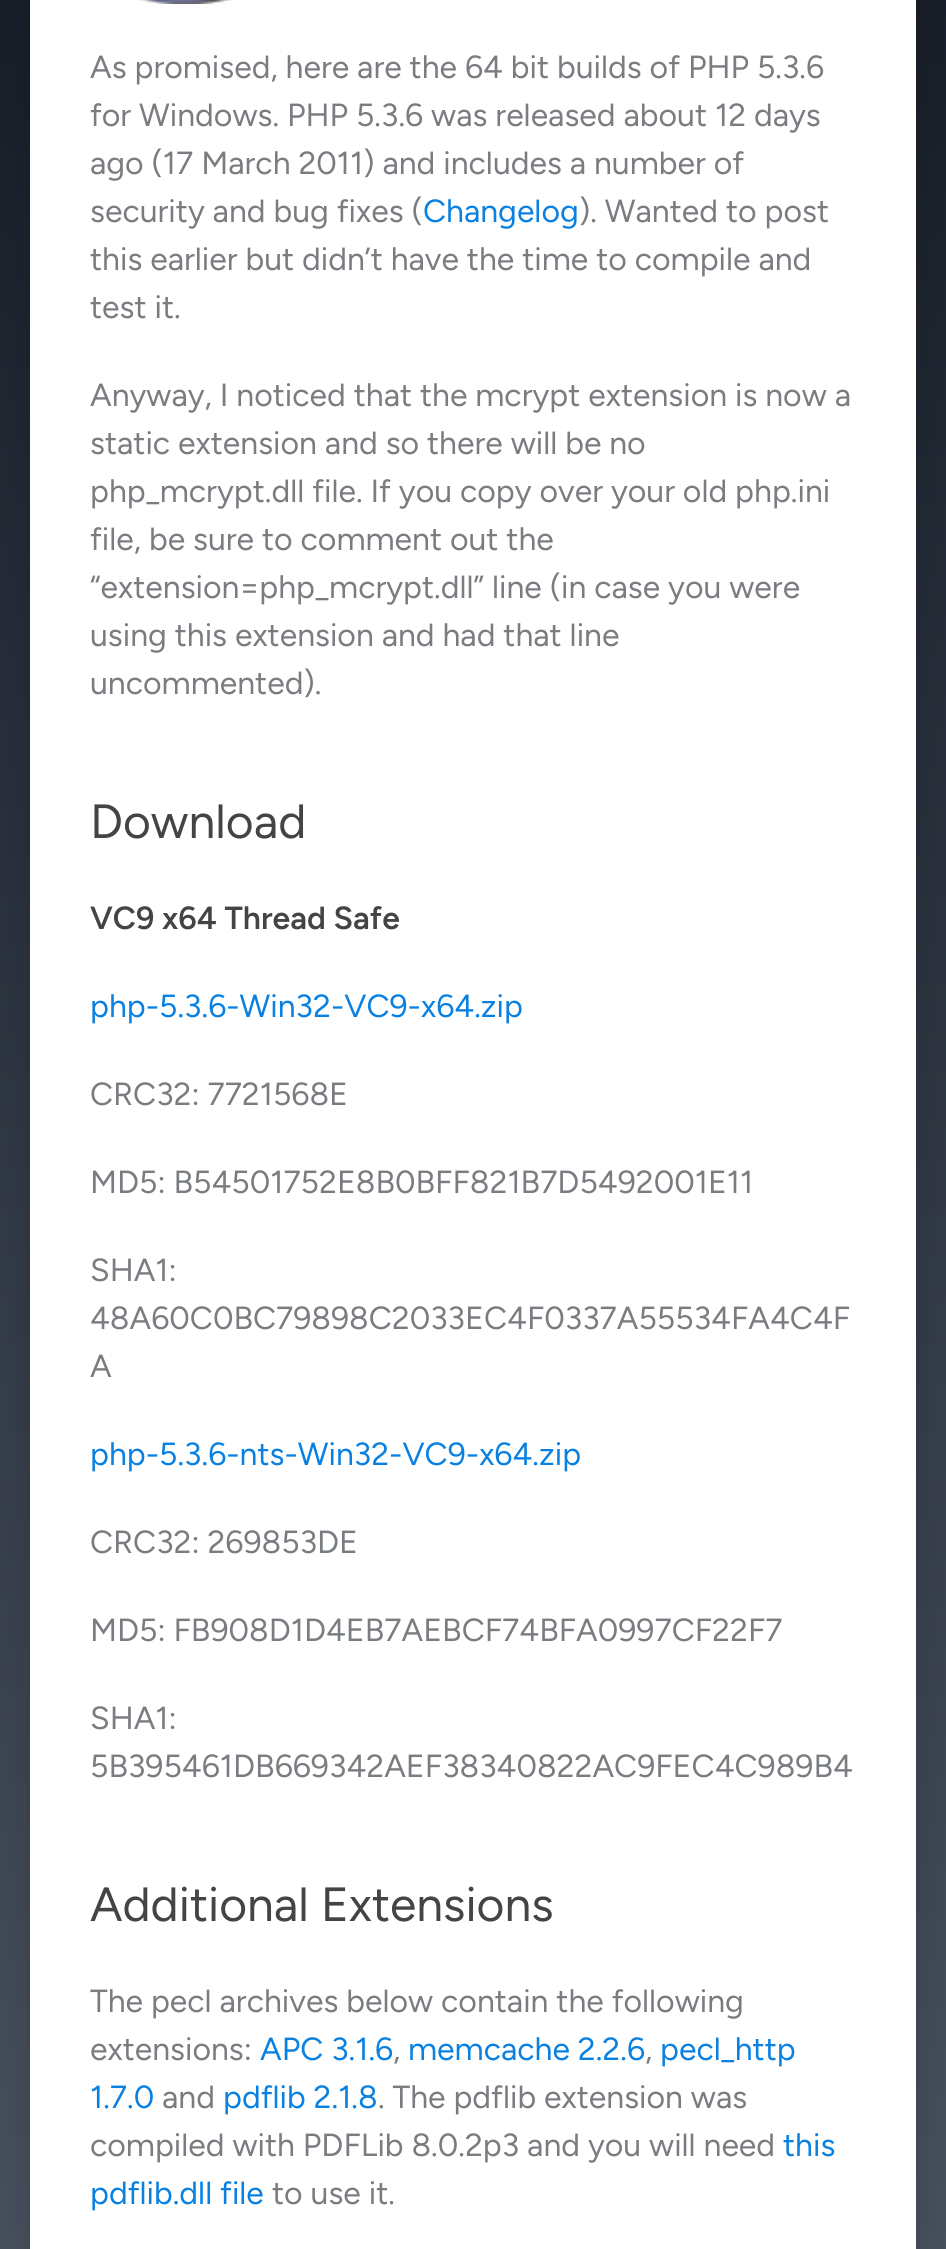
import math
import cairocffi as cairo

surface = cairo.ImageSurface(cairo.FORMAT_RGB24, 946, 2249)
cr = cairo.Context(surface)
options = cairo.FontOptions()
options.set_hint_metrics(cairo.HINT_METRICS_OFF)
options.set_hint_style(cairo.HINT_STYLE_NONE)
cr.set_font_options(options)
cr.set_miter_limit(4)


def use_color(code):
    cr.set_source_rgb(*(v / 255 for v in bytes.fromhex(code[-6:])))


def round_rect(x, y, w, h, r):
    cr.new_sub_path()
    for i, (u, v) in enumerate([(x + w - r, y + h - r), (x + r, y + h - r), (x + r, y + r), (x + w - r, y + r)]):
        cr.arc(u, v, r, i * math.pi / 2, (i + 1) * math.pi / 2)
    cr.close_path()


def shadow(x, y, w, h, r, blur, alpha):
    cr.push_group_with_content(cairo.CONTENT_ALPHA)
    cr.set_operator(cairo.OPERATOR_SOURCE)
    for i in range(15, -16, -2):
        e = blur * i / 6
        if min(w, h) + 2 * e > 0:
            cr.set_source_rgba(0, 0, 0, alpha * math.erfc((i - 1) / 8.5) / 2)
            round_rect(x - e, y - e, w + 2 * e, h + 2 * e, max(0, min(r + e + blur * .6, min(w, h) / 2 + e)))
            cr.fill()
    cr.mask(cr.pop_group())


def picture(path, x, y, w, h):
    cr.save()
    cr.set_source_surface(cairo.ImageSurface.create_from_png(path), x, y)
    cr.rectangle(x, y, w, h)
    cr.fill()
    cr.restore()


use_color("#ffffff")
cr.paint()
gradient = cairo.LinearGradient(473, 0, 473, 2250)
gradient.add_color_stop_rgba(0, 0.094, 0.118, 0.161, 1)
gradient.add_color_stop_rgba(1, 0.282, 0.318, 0.369, 1)
cr.set_source(gradient)
cr.rectangle(0, 0, 946, 2249)
cr.fill()
use_color("#000000")
shadow(30, -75, 886, 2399, 0, 25, 0.16)
use_color("#ffffff")
cr.rectangle(30, 0, 886, 2249)
cr.fill()
picture("img1.png", 138, 0, 94, 4)
cr.select_font_face("Figtree")
cr.set_font_size(32)
use_color("#797c80")
cr.move_to(90, 78)
cr.show_text("As promised, here are the 64 bit builds of PHP 5.3.6")
cr.move_to(90, 126)
cr.show_text("for Windows. PHP 5.3.6 was released about 12 days")
cr.move_to(90, 174)
cr.show_text("ago (17 March 2011) and includes a number of")
cr.move_to(90, 222)
cr.show_text("security and bug fixes (")
use_color("#0a81e1")
cr.move_to(423, 222)
cr.show_text("Changelog")
use_color("#797c80")
cr.move_to(579, 222)
cr.show_text("). Wanted to post")
cr.move_to(90, 270)
cr.show_text("this earlier but didn’t have the time to compile and")
cr.move_to(90, 318)
cr.show_text("test it.")
cr.move_to(90, 406)
cr.show_text("Anyway, I noticed that the mcrypt extension is now a")
cr.move_to(90, 454)
cr.show_text("static extension and so there will be no")
cr.move_to(90, 502)
cr.show_text("php_mcrypt.dll file. If you copy over your old php.ini")
cr.move_to(90, 550)
cr.show_text("file, be sure to comment out the")
cr.move_to(90, 598)
cr.show_text("“extension=php_mcrypt.dll” line (in case you were")
cr.move_to(90, 646)
cr.show_text("using this extension and had that line")
cr.move_to(90, 694)
cr.show_text("uncommented).")
cr.set_font_size(48)
use_color("#444444")
cr.move_to(90, 838)
cr.show_text("Download")
cr.select_font_face("Figtree SemiBold")
cr.set_font_size(32)
cr.move_to(90, 929)
cr.show_text("VC9 x64 Thread Safe")
cr.select_font_face("Figtree")
use_color("#0a81e1")
cr.move_to(90, 1017)
cr.show_text("php-5.3.6-Win32-VC9-x64.zip")
use_color("#797c80")
cr.move_to(90, 1105)
cr.show_text("CRC32: 7721568E")
cr.move_to(90, 1193)
cr.show_text("MD5: B54501752E8B0BFF821B7D5492001E11")
cr.move_to(90, 1281)
cr.show_text("SHA1:")
cr.move_to(90, 1329)
cr.show_text("48A60C0BC79898C2033EC4F0337A55534FA4C4F")
cr.move_to(90, 1377)
cr.show_text("A")
use_color("#0a81e1")
cr.move_to(90, 1465)
cr.show_text("php-5.3.6-nts-Win32-VC9-x64.zip")
use_color("#797c80")
cr.move_to(90, 1553)
cr.show_text("CRC32: 269853DE")
cr.move_to(90, 1641)
cr.show_text("MD5: FB908D1D4EB7AEBCF74BFA0997CF22F7")
cr.move_to(90, 1729)
cr.show_text("SHA1:")
cr.move_to(90, 1777)
cr.show_text("5B395461DB669342AEF38340822AC9FEC4C989B4")
cr.set_font_size(48)
use_color("#444444")
cr.move_to(90, 1921)
cr.show_text("Additional Extensions")
cr.set_font_size(32)
use_color("#797c80")
cr.move_to(90, 2012)
cr.show_text("The pecl archives below contain the following")
cr.move_to(90, 2060)
cr.show_text("extensions:")
use_color("#0a81e1")
cr.move_to(260, 2060)
cr.show_text("APC 3.1.6")
use_color("#797c80")
cr.move_to(393, 2060)
cr.show_text(",")
use_color("#0a81e1")
cr.move_to(408, 2060)
cr.show_text("memcache 2.2.6")
use_color("#797c80")
cr.move_to(645, 2060)
cr.show_text(",")
use_color("#0a81e1")
cr.move_to(660, 2060)
cr.show_text("pecl_http")
cr.move_to(90, 2108)
cr.show_text("1.7.0")
use_color("#797c80")
cr.move_to(162, 2108)
cr.show_text("and")
use_color("#0a81e1")
cr.move_to(223, 2108)
cr.show_text("pdflib 2.1.8")
use_color("#797c80")
cr.move_to(378, 2108)
cr.show_text(". The pdflib extension was")
cr.move_to(90, 2156)
cr.show_text("compiled with PDFLib 8.0.2p3 and you will need")
use_color("#0a81e1")
cr.move_to(783, 2156)
cr.show_text("this")
cr.move_to(90, 2204)
cr.show_text("pdflib.dll file")
use_color("#797c80")
cr.move_to(272, 2204)
cr.show_text("to use it.")
surface.write_to_png("result.png")
